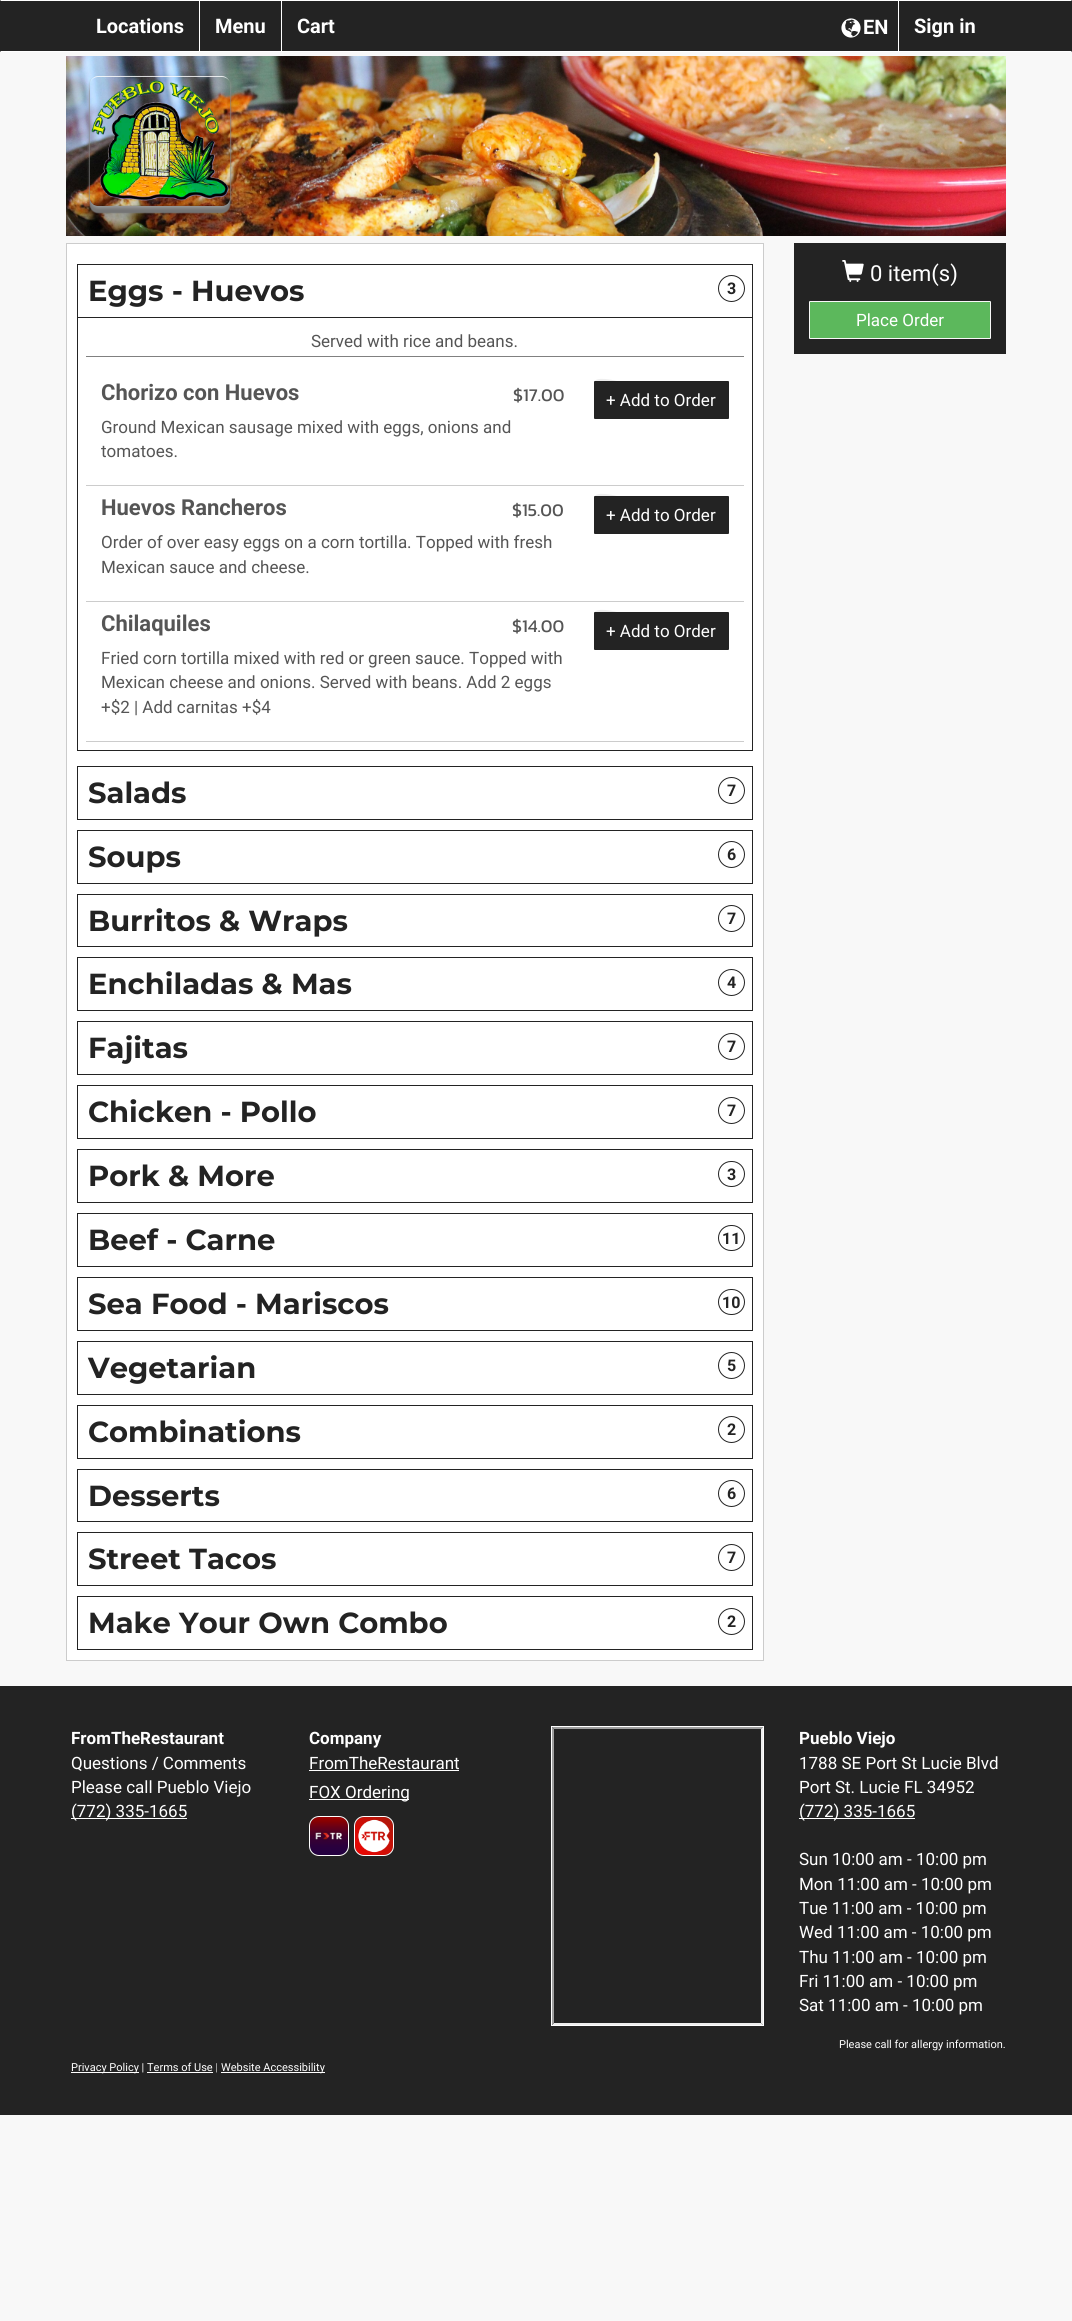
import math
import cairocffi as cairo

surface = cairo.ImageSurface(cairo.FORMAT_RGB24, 1072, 2321)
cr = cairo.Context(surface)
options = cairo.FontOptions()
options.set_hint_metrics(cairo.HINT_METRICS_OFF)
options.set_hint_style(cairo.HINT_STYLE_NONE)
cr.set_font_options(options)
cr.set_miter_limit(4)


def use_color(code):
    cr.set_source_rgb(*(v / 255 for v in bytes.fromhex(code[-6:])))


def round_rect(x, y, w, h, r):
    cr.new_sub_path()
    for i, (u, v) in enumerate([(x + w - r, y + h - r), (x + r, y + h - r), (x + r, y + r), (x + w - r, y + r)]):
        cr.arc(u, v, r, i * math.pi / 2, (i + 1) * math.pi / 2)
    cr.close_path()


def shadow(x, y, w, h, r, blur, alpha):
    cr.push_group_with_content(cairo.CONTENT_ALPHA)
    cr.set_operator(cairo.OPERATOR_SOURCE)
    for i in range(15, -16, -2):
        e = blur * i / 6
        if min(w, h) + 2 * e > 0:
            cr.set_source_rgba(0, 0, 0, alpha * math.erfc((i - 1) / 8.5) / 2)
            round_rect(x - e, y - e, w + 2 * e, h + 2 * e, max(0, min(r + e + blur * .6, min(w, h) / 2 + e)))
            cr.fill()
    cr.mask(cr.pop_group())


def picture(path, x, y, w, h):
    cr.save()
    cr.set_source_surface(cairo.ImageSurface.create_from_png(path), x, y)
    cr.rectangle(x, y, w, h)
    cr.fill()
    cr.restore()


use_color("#f8f8f8")
cr.paint()
use_color("#232323")
cr.rectangle(0, 0, 1072, 52)
cr.fill()
use_color("#ffffff")
cr.new_path()
cr.move_to(0, 0)
cr.line_to(1072, 0)
cr.line_to(1071, 1)
cr.line_to(1, 1)
cr.close_path()
cr.fill()
cr.new_path()
cr.move_to(1072, 52)
cr.line_to(0, 52)
cr.line_to(1, 51)
cr.line_to(1071, 51)
cr.close_path()
cr.fill()
cr.rectangle(199, 1, 1, 50)
cr.fill()
cr.select_font_face("Roboto", cairo.FONT_SLANT_NORMAL, cairo.FONT_WEIGHT_BOLD)
cr.set_font_size(20)
cr.move_to(96, 33)
cr.show_text("Locations")
cr.rectangle(281, 1, 1, 50)
cr.fill()
cr.move_to(215, 33)
cr.show_text("Menu")
cr.move_to(297, 33)
cr.show_text("Cart")
picture("img1.png", 841, 18, 20, 20)
cr.move_to(863, 34)
cr.show_text("EN")
cr.rectangle(898, 1, 1, 50)
cr.fill()
cr.move_to(914, 33)
cr.show_text("Sign in")
picture("img2.png", 66, 56, 940, 180)
cr.save()
cr.set_fill_rule(cairo.FILL_RULE_EVEN_ODD)
cr.new_path()
cr.move_to(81, 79)
cr.line_to(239, 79)
cr.line_to(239, 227)
cr.line_to(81, 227)
cr.close_path()
cr.move_to(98, 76)
cr.line_to(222, 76)
cr.curve_to(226.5, 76, 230, 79.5, 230, 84)
cr.line_to(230, 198)
cr.curve_to(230, 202.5, 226.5, 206, 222, 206)
cr.line_to(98, 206)
cr.curve_to(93.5, 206, 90, 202.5, 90, 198)
cr.line_to(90, 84)
cr.curve_to(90, 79.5, 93.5, 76, 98, 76)
cr.close_path()
cr.clip()
use_color("#000000")
shadow(90, 88, 140, 130, 8, 2.5, 0.2)
cr.restore()
cr.save()
cr.set_fill_rule(cairo.FILL_RULE_EVEN_ODD)
cr.new_path()
cr.move_to(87, 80)
cr.line_to(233, 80)
cr.line_to(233, 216)
cr.line_to(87, 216)
cr.close_path()
cr.move_to(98, 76)
cr.line_to(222, 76)
cr.curve_to(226.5, 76, 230, 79.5, 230, 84)
cr.line_to(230, 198)
cr.curve_to(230, 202.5, 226.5, 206, 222, 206)
cr.line_to(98, 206)
cr.curve_to(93.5, 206, 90, 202.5, 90, 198)
cr.line_to(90, 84)
cr.curve_to(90, 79.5, 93.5, 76, 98, 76)
cr.close_path()
cr.clip()
use_color("#737373")
shadow(90, 83, 140, 130, 8, 0.5, 1)
cr.restore()
cr.save()
cr.set_fill_rule(cairo.FILL_RULE_EVEN_ODD)
cr.new_path()
cr.move_to(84, 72)
cr.line_to(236, 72)
cr.line_to(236, 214)
cr.line_to(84, 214)
cr.close_path()
cr.move_to(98, 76)
cr.line_to(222, 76)
cr.curve_to(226.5, 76, 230, 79.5, 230, 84)
cr.line_to(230, 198)
cr.curve_to(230, 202.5, 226.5, 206, 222, 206)
cr.line_to(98, 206)
cr.curve_to(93.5, 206, 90, 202.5, 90, 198)
cr.line_to(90, 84)
cr.curve_to(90, 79.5, 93.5, 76, 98, 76)
cr.close_path()
cr.clip()
use_color("#999999")
shadow(90, 78, 140, 130, 8, 1.5, 1)
cr.restore()
picture("img3.png", 91, 80, 138, 121)
cr.set_source_rgba(1, 1, 1, 0.8)
cr.new_path()
cr.move_to(98, 76)
cr.curve_to(94, 76, 90, 80, 90, 84)
cr.curve_to(90, 80, 94, 77, 98, 77)
cr.line_to(222, 77)
cr.curve_to(226, 77, 230, 80, 230, 84)
cr.curve_to(230, 80, 226, 76, 222, 76)
cr.close_path()
cr.fill()
cr.set_source_rgba(0, 0, 0, 0.1)
cr.new_path()
cr.move_to(222, 206)
cr.curve_to(226, 206, 230, 202, 230, 198)
cr.curve_to(230, 202, 226, 205, 222, 205)
cr.line_to(98, 205)
cr.curve_to(94, 205, 90, 202, 90, 198)
cr.curve_to(90, 202, 94, 206, 98, 206)
cr.close_path()
cr.fill()
use_color("#ffffff")
cr.rectangle(66.5, 243.5, 697, 1417)
cr.fill_preserve()
use_color("#cccccc")
cr.set_line_width(1)
cr.stroke()
cr.rectangle(77.5, 317.5, 675, 433)
use_color("#232323")
cr.stroke()
cr.rectangle(77.5, 264.5, 675, 53)
cr.stroke()
cr.select_font_face("Montserrat", cairo.FONT_SLANT_NORMAL, cairo.FONT_WEIGHT_BOLD)
cr.set_font_size(29)
cr.move_to(88, 301)
cr.show_text("Eggs - Huevos")
cr.new_path()
cr.arc(731.5, 288.5, 13, 0, 2 * math.pi)
cr.stroke()
cr.select_font_face("Roboto", cairo.FONT_SLANT_NORMAL, cairo.FONT_WEIGHT_BOLD)
cr.set_font_size(16)
cr.move_to(727, 294)
cr.show_text("3")
use_color("#808080")
cr.rectangle(86, 356, 658, 1)
cr.fill()
cr.select_font_face("Roboto")
cr.set_font_size(17)
use_color("#555555")
cr.move_to(311, 347)
cr.show_text("Served with rice and beans.")
use_color("#cccccc")
cr.rectangle(86, 485, 658, 1)
cr.fill()
cr.select_font_face("Roboto", cairo.FONT_SLANT_NORMAL, cairo.FONT_WEIGHT_BOLD)
cr.set_font_size(22)
use_color("#555555")
cr.move_to(101, 400)
cr.show_text("Chorizo con Huevos")
cr.select_font_face("Kanit")
cr.set_font_size(18)
cr.move_to(513, 401)
cr.show_text("$17.00")
cr.select_font_face("Roboto")
cr.set_font_size(17)
cr.move_to(101, 433)
cr.show_text("Ground Mexican sausage mixed with eggs, onions and")
cr.move_to(101, 457)
cr.show_text("tomatoes.")
use_color("#232323")
round_rect(594, 381, 135, 38, 1)
cr.fill()
cr.set_source_rgba(0, 0, 0, 0.07)
cr.new_path()
cr.move_to(595, 382)
cr.line_to(728, 382)
cr.curve_to(729, 382, 729, 382, 729, 383)
cr.line_to(729, 381)
cr.line_to(617, 381)
cr.curve_to(617, 381, 594, 375, 594, 383)
cr.curve_to(594, 382, 594, 382, 595, 382)
cr.close_path()
cr.fill()
use_color("#ffffff")
cr.move_to(606, 406)
cr.show_text("+ Add to Order")
use_color("#cccccc")
cr.rectangle(86, 601, 658, 1)
cr.fill()
cr.select_font_face("Roboto", cairo.FONT_SLANT_NORMAL, cairo.FONT_WEIGHT_BOLD)
cr.set_font_size(22)
use_color("#555555")
cr.move_to(101, 515)
cr.show_text("Huevos Rancheros")
cr.select_font_face("Kanit")
cr.set_font_size(18)
cr.move_to(512, 516)
cr.show_text("$15.00")
cr.select_font_face("Roboto")
cr.set_font_size(17)
cr.move_to(101, 548)
cr.show_text("Order of over easy eggs on a corn tortilla. Topped with fresh")
cr.move_to(101, 573)
cr.show_text("Mexican sauce and cheese.")
use_color("#232323")
round_rect(594, 496, 135, 38, 1)
cr.fill()
cr.set_source_rgba(0, 0, 0, 0.07)
cr.new_path()
cr.move_to(595, 497)
cr.line_to(728, 497)
cr.curve_to(729, 497, 729, 497, 729, 498)
cr.line_to(729, 496)
cr.line_to(617, 496)
cr.curve_to(617, 496, 594, 490, 594, 498)
cr.curve_to(594, 497, 594, 497, 595, 497)
cr.close_path()
cr.fill()
use_color("#ffffff")
cr.move_to(606, 521)
cr.show_text("+ Add to Order")
use_color("#cccccc")
cr.rectangle(86, 741, 658, 1)
cr.fill()
cr.select_font_face("Roboto", cairo.FONT_SLANT_NORMAL, cairo.FONT_WEIGHT_BOLD)
cr.set_font_size(22)
use_color("#555555")
cr.move_to(101, 631)
cr.show_text("Chilaquiles")
cr.select_font_face("Kanit")
cr.set_font_size(18)
cr.move_to(512, 632)
cr.show_text("$14.00")
cr.select_font_face("Roboto")
cr.set_font_size(17)
cr.move_to(101, 664)
cr.show_text("Fried corn tortilla mixed with red or green sauce. Topped with")
cr.move_to(101, 688)
cr.show_text("Mexican cheese and onions. Served with beans. Add 2 eggs")
cr.move_to(101, 713)
cr.show_text("+$2 | Add carnitas +$4")
use_color("#232323")
round_rect(594, 612, 135, 38, 1)
cr.fill()
cr.set_source_rgba(0, 0, 0, 0.07)
cr.new_path()
cr.move_to(595, 613)
cr.line_to(728, 613)
cr.curve_to(729, 613, 729, 613, 729, 614)
cr.line_to(729, 612)
cr.line_to(617, 612)
cr.curve_to(617, 612, 594, 606, 594, 614)
cr.curve_to(594, 613, 594, 613, 595, 613)
cr.close_path()
cr.fill()
use_color("#ffffff")
cr.move_to(606, 637)
cr.show_text("+ Add to Order")
cr.rectangle(77.5, 766.5, 675, 53)
use_color("#232323")
cr.stroke()
cr.select_font_face("Montserrat", cairo.FONT_SLANT_NORMAL, cairo.FONT_WEIGHT_BOLD)
cr.set_font_size(29)
cr.move_to(88, 803)
cr.show_text("Salads")
cr.new_path()
cr.arc(731.5, 790.5, 13, 0, 2 * math.pi)
cr.stroke()
cr.select_font_face("Roboto", cairo.FONT_SLANT_NORMAL, cairo.FONT_WEIGHT_BOLD)
cr.set_font_size(16)
cr.move_to(727, 796)
cr.show_text("7")
cr.rectangle(77.5, 830.5, 675, 53)
cr.stroke()
cr.select_font_face("Montserrat", cairo.FONT_SLANT_NORMAL, cairo.FONT_WEIGHT_BOLD)
cr.set_font_size(29)
cr.move_to(88, 867)
cr.show_text("Soups")
cr.new_path()
cr.arc(731.5, 854.5, 13, 0, 2 * math.pi)
cr.stroke()
cr.select_font_face("Roboto", cairo.FONT_SLANT_NORMAL, cairo.FONT_WEIGHT_BOLD)
cr.set_font_size(16)
cr.move_to(727, 860)
cr.show_text("6")
cr.rectangle(77.5, 894.5, 675, 52)
cr.stroke()
cr.select_font_face("Montserrat", cairo.FONT_SLANT_NORMAL, cairo.FONT_WEIGHT_BOLD)
cr.set_font_size(29)
cr.move_to(88, 931)
cr.show_text("Burritos & Wraps")
cr.new_path()
cr.arc(731.5, 918.5, 13, 0, 2 * math.pi)
cr.stroke()
cr.select_font_face("Roboto", cairo.FONT_SLANT_NORMAL, cairo.FONT_WEIGHT_BOLD)
cr.set_font_size(16)
cr.move_to(727, 924)
cr.show_text("7")
cr.rectangle(77.5, 957.5, 675, 53)
cr.stroke()
cr.select_font_face("Montserrat", cairo.FONT_SLANT_NORMAL, cairo.FONT_WEIGHT_BOLD)
cr.set_font_size(29)
cr.move_to(88, 994)
cr.show_text("Enchiladas & Mas")
cr.new_path()
cr.arc(731.5, 982.5, 13, 0, 2 * math.pi)
cr.stroke()
cr.select_font_face("Roboto", cairo.FONT_SLANT_NORMAL, cairo.FONT_WEIGHT_BOLD)
cr.set_font_size(16)
cr.move_to(727, 988)
cr.show_text("4")
cr.rectangle(77.5, 1021.5, 675, 53)
cr.stroke()
cr.select_font_face("Montserrat", cairo.FONT_SLANT_NORMAL, cairo.FONT_WEIGHT_BOLD)
cr.set_font_size(29)
cr.move_to(88, 1058)
cr.show_text("Fajitas")
cr.new_path()
cr.arc(731.5, 1046.5, 13, 0, 2 * math.pi)
cr.stroke()
cr.select_font_face("Roboto", cairo.FONT_SLANT_NORMAL, cairo.FONT_WEIGHT_BOLD)
cr.set_font_size(16)
cr.move_to(727, 1052)
cr.show_text("7")
cr.rectangle(77.5, 1085.5, 675, 53)
cr.stroke()
cr.select_font_face("Montserrat", cairo.FONT_SLANT_NORMAL, cairo.FONT_WEIGHT_BOLD)
cr.set_font_size(29)
cr.move_to(88, 1122)
cr.show_text("Chicken - Pollo")
cr.new_path()
cr.arc(731.5, 1110.5, 13, 0, 2 * math.pi)
cr.stroke()
cr.select_font_face("Roboto", cairo.FONT_SLANT_NORMAL, cairo.FONT_WEIGHT_BOLD)
cr.set_font_size(16)
cr.move_to(727, 1116)
cr.show_text("7")
cr.rectangle(77.5, 1149.5, 675, 53)
cr.stroke()
cr.select_font_face("Montserrat", cairo.FONT_SLANT_NORMAL, cairo.FONT_WEIGHT_BOLD)
cr.set_font_size(29)
cr.move_to(88, 1186)
cr.show_text("Pork & More")
round_rect(718.5, 1161.5, 26, 25, 12.5)
cr.stroke()
cr.select_font_face("Roboto", cairo.FONT_SLANT_NORMAL, cairo.FONT_WEIGHT_BOLD)
cr.set_font_size(16)
cr.move_to(727, 1180)
cr.show_text("3")
cr.rectangle(77.5, 1213.5, 675, 53)
cr.stroke()
cr.select_font_face("Montserrat", cairo.FONT_SLANT_NORMAL, cairo.FONT_WEIGHT_BOLD)
cr.set_font_size(29)
cr.move_to(88, 1250)
cr.show_text("Beef - Carne")
round_rect(718.5, 1225.5, 26, 25, 12.5)
cr.stroke()
cr.select_font_face("Roboto", cairo.FONT_SLANT_NORMAL, cairo.FONT_WEIGHT_BOLD)
cr.set_font_size(16)
cr.move_to(722, 1244)
cr.show_text("11")
cr.rectangle(77.5, 1277.5, 675, 53)
cr.stroke()
cr.select_font_face("Montserrat", cairo.FONT_SLANT_NORMAL, cairo.FONT_WEIGHT_BOLD)
cr.set_font_size(29)
cr.move_to(88, 1314)
cr.show_text("Sea Food - Mariscos")
round_rect(718.5, 1289.5, 26, 25, 12.5)
cr.stroke()
cr.select_font_face("Roboto", cairo.FONT_SLANT_NORMAL, cairo.FONT_WEIGHT_BOLD)
cr.set_font_size(16)
cr.move_to(722, 1308)
cr.show_text("10")
cr.rectangle(77.5, 1341.5, 675, 53)
cr.stroke()
cr.select_font_face("Montserrat", cairo.FONT_SLANT_NORMAL, cairo.FONT_WEIGHT_BOLD)
cr.set_font_size(29)
cr.move_to(88, 1378)
cr.show_text("Vegetarian")
cr.new_path()
cr.arc(731.5, 1365.5, 13, 0, 2 * math.pi)
cr.stroke()
cr.select_font_face("Roboto", cairo.FONT_SLANT_NORMAL, cairo.FONT_WEIGHT_BOLD)
cr.set_font_size(16)
cr.move_to(727, 1371)
cr.show_text("5")
cr.rectangle(77.5, 1405.5, 675, 53)
cr.stroke()
cr.select_font_face("Montserrat", cairo.FONT_SLANT_NORMAL, cairo.FONT_WEIGHT_BOLD)
cr.set_font_size(29)
cr.move_to(88, 1442)
cr.show_text("Combinations")
cr.new_path()
cr.arc(731.5, 1429.5, 13, 0, 2 * math.pi)
cr.stroke()
cr.select_font_face("Roboto", cairo.FONT_SLANT_NORMAL, cairo.FONT_WEIGHT_BOLD)
cr.set_font_size(16)
cr.move_to(727, 1435)
cr.show_text("2")
cr.rectangle(77.5, 1469.5, 675, 52)
cr.stroke()
cr.select_font_face("Montserrat", cairo.FONT_SLANT_NORMAL, cairo.FONT_WEIGHT_BOLD)
cr.set_font_size(29)
cr.move_to(88, 1506)
cr.show_text("Desserts")
cr.new_path()
cr.arc(731.5, 1493.5, 13, 0, 2 * math.pi)
cr.stroke()
cr.select_font_face("Roboto", cairo.FONT_SLANT_NORMAL, cairo.FONT_WEIGHT_BOLD)
cr.set_font_size(16)
cr.move_to(727, 1499)
cr.show_text("6")
cr.rectangle(77.5, 1532.5, 675, 53)
cr.stroke()
cr.select_font_face("Montserrat", cairo.FONT_SLANT_NORMAL, cairo.FONT_WEIGHT_BOLD)
cr.set_font_size(29)
cr.move_to(88, 1569)
cr.show_text("Street Tacos")
cr.new_path()
cr.arc(731.5, 1557.5, 13, 0, 2 * math.pi)
cr.stroke()
cr.select_font_face("Roboto", cairo.FONT_SLANT_NORMAL, cairo.FONT_WEIGHT_BOLD)
cr.set_font_size(16)
cr.move_to(727, 1563)
cr.show_text("7")
cr.rectangle(77.5, 1596.5, 675, 53)
cr.stroke()
cr.select_font_face("Montserrat", cairo.FONT_SLANT_NORMAL, cairo.FONT_WEIGHT_BOLD)
cr.set_font_size(29)
cr.move_to(88, 1633)
cr.show_text("Make Your Own Combo")
cr.new_path()
cr.arc(731.5, 1621.5, 13, 0, 2 * math.pi)
cr.stroke()
cr.select_font_face("Roboto", cairo.FONT_SLANT_NORMAL, cairo.FONT_WEIGHT_BOLD)
cr.set_font_size(16)
cr.move_to(727, 1627)
cr.show_text("2")
cr.rectangle(794, 243, 212, 111)
cr.fill()
picture("img4.png", 842, 260, 22, 22)
cr.select_font_face("Roboto")
cr.set_font_size(22)
use_color("#ffffff")
cr.move_to(870, 281)
cr.show_text("0 item(s)")
use_color("#5cb85c")
round_rect(809.5, 301.5, 181, 37, 0.5)
cr.fill_preserve()
use_color("#f8f8f8")
cr.stroke()
cr.set_font_size(17)
use_color("#ffffff")
cr.move_to(856, 326)
cr.show_text("Place Order")
use_color("#232323")
cr.rectangle(0, 1686, 1072, 429)
cr.fill()
cr.select_font_face("Roboto", cairo.FONT_SLANT_NORMAL, cairo.FONT_WEIGHT_BOLD)
use_color("#ffffff")
cr.move_to(71, 1744)
cr.show_text("FromTheRestaurant")
cr.select_font_face("Roboto")
cr.move_to(71, 1769)
cr.show_text("Questions / Comments")
cr.move_to(71, 1793)
cr.show_text("Please call Pueblo Viejo")
cr.rectangle(71, 1818, 116, 1)
cr.fill()
cr.move_to(71, 1817)
cr.show_text("(772) 335-1665")
cr.select_font_face("Roboto", cairo.FONT_SLANT_NORMAL, cairo.FONT_WEIGHT_BOLD)
cr.move_to(309, 1744)
cr.show_text("Company")
cr.select_font_face("Roboto")
cr.move_to(309, 1769)
cr.show_text("FromTheRestaurant")
cr.rectangle(309, 1770, 150, 1)
cr.fill()
cr.rectangle(309, 1799, 100, 1)
cr.fill()
cr.move_to(309, 1798)
cr.show_text("FOX Ordering")
picture("img5.png", 309, 1816, 40, 40)
round_rect(309.5, 1816.5, 39, 39, 9.5)
cr.stroke()
picture("img6.png", 354, 1816, 40, 40)
round_rect(354.5, 1816.5, 39, 39, 9.5)
cr.stroke()
cr.rectangle(551.5, 1726.5, 212, 299)
cr.stroke()
use_color("#9f9f9f")
cr.new_path()
cr.move_to(552, 1727)
cr.line_to(763, 1727)
cr.line_to(761, 1729)
cr.line_to(554, 1729)
cr.close_path()
cr.fill()
use_color("#eeeeee")
cr.new_path()
cr.move_to(763, 1727)
cr.line_to(763, 2025)
cr.line_to(761, 2023)
cr.line_to(761, 1729)
cr.close_path()
cr.fill()
cr.new_path()
cr.move_to(763, 2025)
cr.line_to(552, 2025)
cr.line_to(554, 2023)
cr.line_to(761, 2023)
cr.close_path()
cr.fill()
use_color("#9f9f9f")
cr.new_path()
cr.move_to(552, 2025)
cr.line_to(552, 1727)
cr.line_to(554, 1729)
cr.line_to(554, 2023)
cr.close_path()
cr.fill()
cr.select_font_face("Roboto", cairo.FONT_SLANT_NORMAL, cairo.FONT_WEIGHT_BOLD)
use_color("#ffffff")
cr.move_to(799, 1744)
cr.show_text("Pueblo Viejo")
cr.select_font_face("Roboto")
cr.move_to(799, 1769)
cr.show_text("1788 SE Port St Lucie Blvd")
cr.move_to(799, 1793)
cr.show_text("Port St. Lucie FL 34952")
cr.rectangle(799, 1818, 116, 1)
cr.fill()
cr.move_to(799, 1817)
cr.show_text("(772) 335-1665")
cr.move_to(799, 1865)
cr.show_text("Sun 10:00 am - 10:00 pm")
cr.move_to(799, 1890)
cr.show_text("Mon 11:00 am - 10:00 pm")
cr.move_to(799, 1914)
cr.show_text("Tue 11:00 am - 10:00 pm")
cr.move_to(799, 1938)
cr.show_text("Wed 11:00 am - 10:00 pm")
cr.move_to(799, 1963)
cr.show_text("Thu 11:00 am - 10:00 pm")
cr.move_to(799, 1987)
cr.show_text("Fri 11:00 am - 10:00 pm")
cr.move_to(799, 2011)
cr.show_text("Sat 11:00 am - 10:00 pm")
cr.set_font_size(11)
cr.move_to(839, 2048)
cr.show_text("Please call for allergy information.")
cr.rectangle(71, 2072, 68, 1)
cr.fill()
cr.move_to(71, 2071)
cr.show_text("Privacy Policy | Terms of Use |")
cr.rectangle(221, 2072, 104, 1)
cr.fill()
cr.move_to(221, 2071)
cr.show_text("Website Accessibility")
cr.rectangle(147, 2072, 66, 1)
cr.fill()
surface.write_to_png("result.png")
